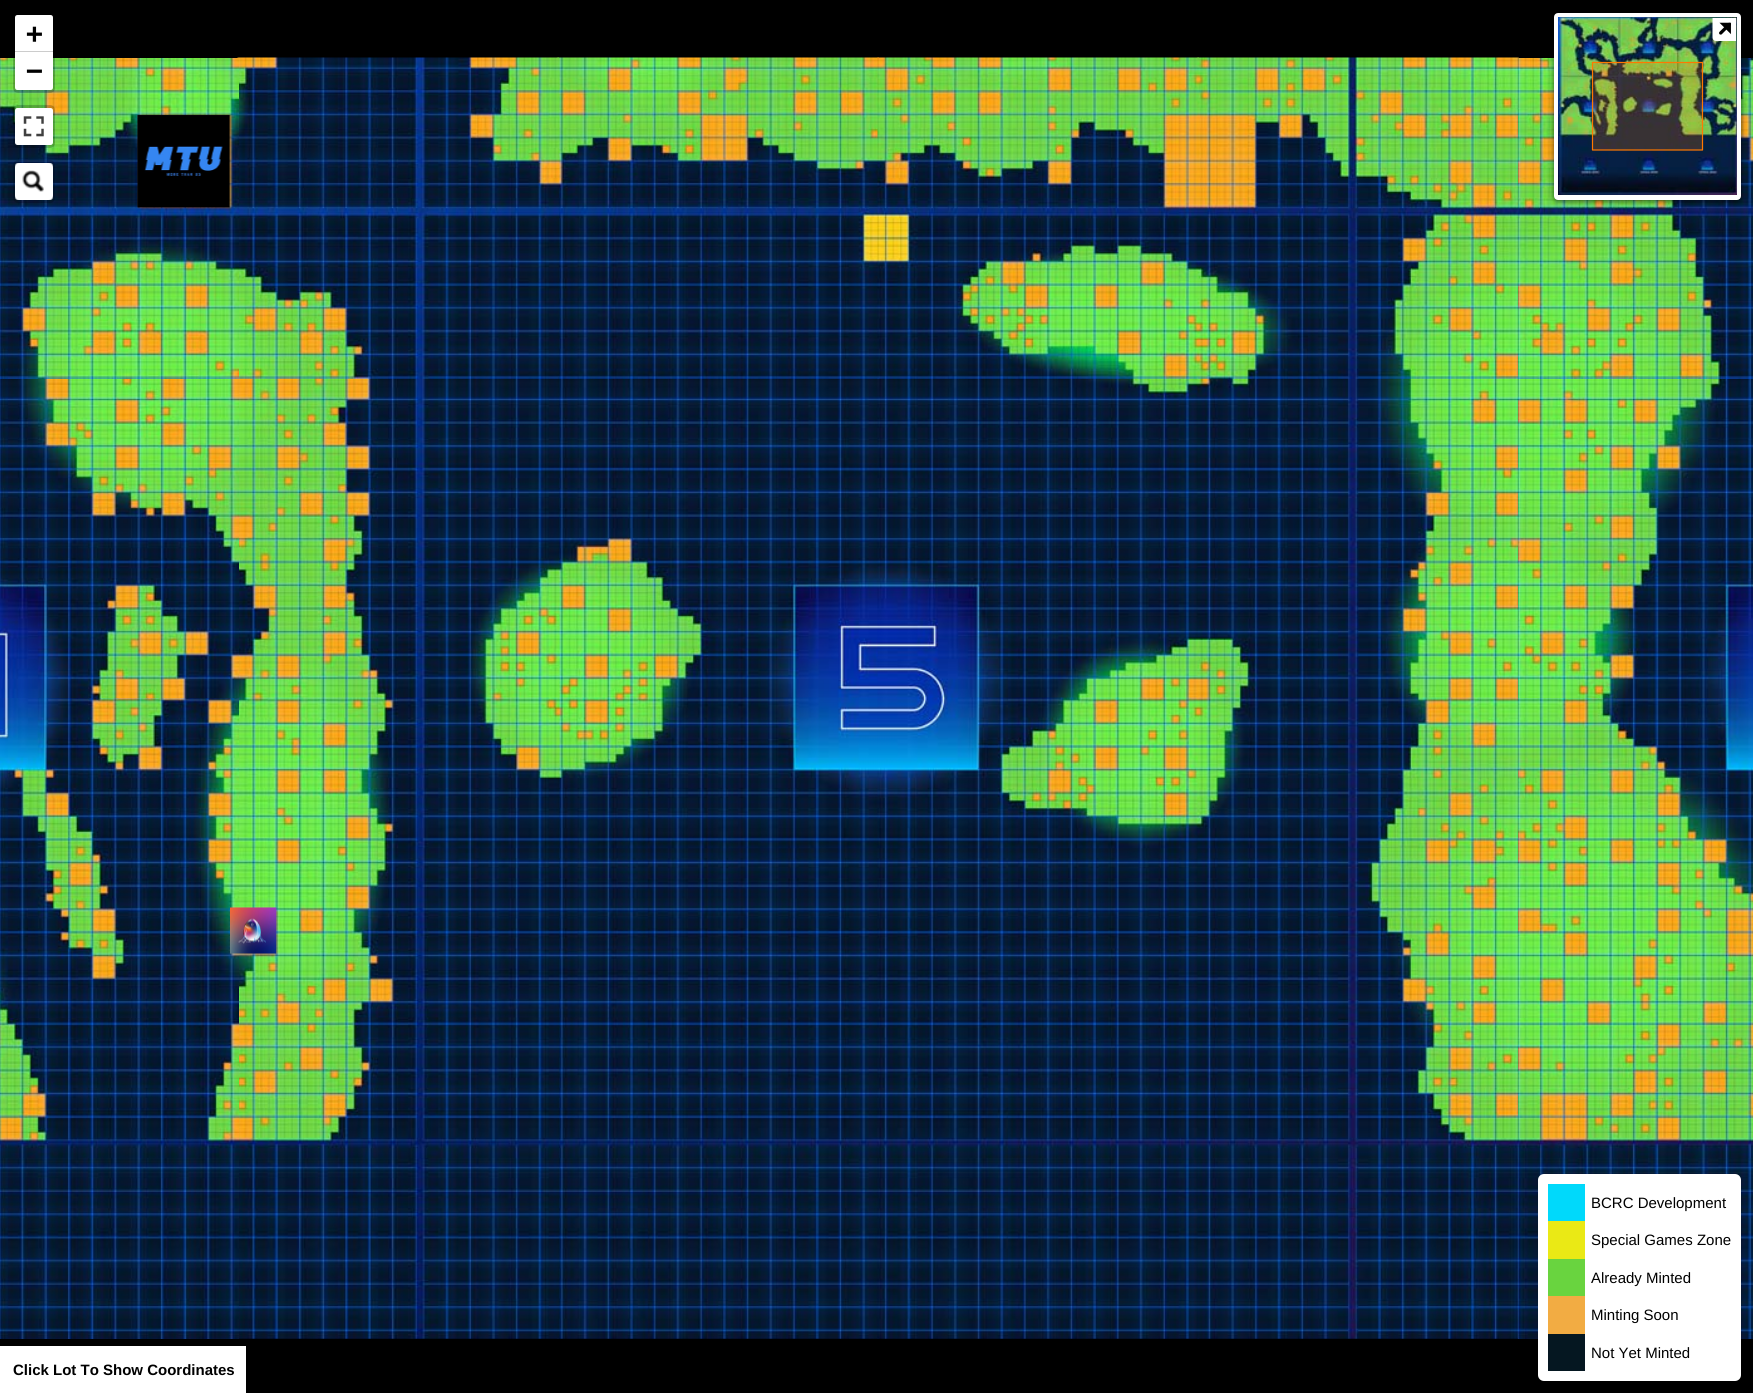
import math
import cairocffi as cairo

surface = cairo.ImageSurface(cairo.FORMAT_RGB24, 1753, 1393)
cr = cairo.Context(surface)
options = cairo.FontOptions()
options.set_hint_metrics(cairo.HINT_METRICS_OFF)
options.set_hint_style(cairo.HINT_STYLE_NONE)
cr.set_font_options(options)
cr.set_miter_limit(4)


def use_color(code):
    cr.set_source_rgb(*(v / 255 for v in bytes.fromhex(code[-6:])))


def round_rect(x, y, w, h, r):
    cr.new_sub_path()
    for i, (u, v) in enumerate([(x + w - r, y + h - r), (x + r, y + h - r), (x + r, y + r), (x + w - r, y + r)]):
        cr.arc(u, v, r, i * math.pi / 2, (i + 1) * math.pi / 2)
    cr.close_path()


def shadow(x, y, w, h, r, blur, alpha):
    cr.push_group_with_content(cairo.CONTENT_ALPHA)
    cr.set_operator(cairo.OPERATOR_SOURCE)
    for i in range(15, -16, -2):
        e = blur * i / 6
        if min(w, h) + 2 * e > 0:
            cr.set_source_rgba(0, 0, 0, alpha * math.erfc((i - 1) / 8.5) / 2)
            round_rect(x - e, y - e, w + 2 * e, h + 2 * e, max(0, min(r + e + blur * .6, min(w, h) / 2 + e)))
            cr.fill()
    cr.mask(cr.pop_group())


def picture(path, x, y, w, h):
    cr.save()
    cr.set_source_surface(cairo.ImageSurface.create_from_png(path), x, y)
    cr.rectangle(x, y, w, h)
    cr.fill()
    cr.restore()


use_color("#000000")
cr.paint()
picture("img13.png", 558, 378, 320, 320)
picture("img14.png", 877, 378, 321, 320)
picture("img7.png", 557, 57, 322, 322)
picture("img19.png", 558, 697, 321, 321)
picture("img12.png", 239, 377, 320, 322)
picture("img6.png", 237, 57, 322, 322)
picture("img5.png", 0, 58, 239, 321)
round_rect(14.5, 14.5, 39, 77, 3.5)
cr.set_source_rgba(0, 0, 0, 0.2)
cr.set_line_width(3)
cr.stroke()
use_color("#ffffff")
cr.new_path()
cr.move_to(17.5, 15)
cr.line_to(50.5, 15)
cr.curve_to(52, 15, 53, 16, 53, 17.5)
cr.line_to(53, 53)
cr.line_to(15, 53)
cr.line_to(15, 17.5)
cr.curve_to(15, 16, 16, 15, 17.5, 15)
cr.close_path()
cr.fill()
use_color("#cccccc")
cr.rectangle(15, 51, 38, 1)
cr.fill()
cr.select_font_face("DejaVu Sans Mono", cairo.FONT_SLANT_NORMAL, cairo.FONT_WEIGHT_BOLD)
cr.set_font_size(28)
use_color("#000000")
cr.move_to(26, 43)
cr.show_text("+")
use_color("#ffffff")
cr.new_path()
cr.move_to(15, 53)
cr.line_to(53, 53)
cr.line_to(53, 87.5)
cr.curve_to(53, 89, 52, 90, 50.5, 90)
cr.line_to(17.5, 90)
cr.curve_to(16, 90, 15, 89, 15, 87.5)
cr.close_path()
cr.fill()
use_color("#000000")
cr.move_to(26, 80)
cr.show_text("−")
round_rect(14.5, 106.5, 39, 40, 3.5)
cr.set_source_rgba(0, 0, 0, 0.2)
cr.stroke()
use_color("#ffffff")
round_rect(15, 108, 38, 37, 2.5)
cr.fill()
picture("img1.png", 23, 116, 21, 21)
cr.set_source_rgba(1, 1, 1, 0.8)
round_rect(15, 163, 38, 37, 2.5)
cr.fill()
round_rect(14.5, 161.5, 39, 40, 3.5)
cr.set_source_rgba(0, 0, 0, 0.2)
cr.stroke()
use_color("#ffffff")
round_rect(15, 163, 38, 37, 5)
cr.fill()
picture("img2.png", 22, 170, 22, 22)
picture("img8.png", 877, 57, 322, 322)
picture("img20.png", 877, 697, 321, 321)
picture("img15.png", 1197, 377, 321, 322)
picture("img9.png", 1197, 57, 322, 322)
picture("img10.png", 1518, 58, 235, 321)
use_color("#000000")
shadow(1554, 14, 187, 187, 4, 3, 0.65)
round_rect(1556.5, 15.5, 182, 182, 1.5)
use_color("#ffffff")
cr.set_line_width(5)
cr.stroke()
picture("img3.png", 1558, 17, 179, 178)
cr.set_source_rgba(1, 0.471, 0, 0.2)
cr.rectangle(1592, 62, 110, 88)
cr.fill()
cr.new_path()
cr.move_to(1592.5, 150)
cr.line_to(1592.5, 62.5)
cr.line_to(1702.5, 62.5)
cr.line_to(1702.5, 150)
cr.close_path()
use_color("#ff7800")
cr.set_line_width(1.2)
cr.set_line_cap(cairo.LINE_CAP_ROUND)
cr.set_line_join(cairo.LINE_JOIN_ROUND)
cr.stroke()
cr.save()
cr.rectangle(1559, 18, 177, 177)
cr.clip()
use_color("#ffffff")
cr.new_path()
cr.move_to(1712.5, 37.5)
cr.line_to(1712.5, 17.5)
cr.line_to(1736, 17.5)
cr.line_to(1736, 41)
cr.line_to(1716, 41)
cr.curve_to(1714, 41, 1712.5, 39.5, 1712.5, 37.5)
cr.close_path()
cr.fill()
cr.restore()
picture("img4.png", 1719, 22, 12, 13)
picture("img28.png", 1518, 1018, 235, 321)
use_color("#ffffff")
round_rect(1538, 1174, 203, 207, 6)
cr.fill()
use_color("#00d9fb")
cr.rectangle(1548, 1184, 37, 37)
cr.fill()
cr.select_font_face("Liberation Sans")
cr.set_font_size(15)
use_color("#000000")
cr.move_to(1591, 1208)
cr.show_text("BCRC Development")
use_color("#eae915")
cr.rectangle(1548, 1221, 37, 38)
cr.fill()
use_color("#000000")
cr.move_to(1591, 1245)
cr.show_text("Special Games Zone")
use_color("#69d43f")
cr.rectangle(1548, 1259, 37, 37)
cr.fill()
use_color("#000000")
cr.move_to(1591, 1283)
cr.show_text("Already Minted")
use_color("#f2ac43")
cr.rectangle(1548, 1296, 37, 38)
cr.fill()
use_color("#000000")
cr.move_to(1591, 1320)
cr.show_text("Minting Soon")
use_color("#051721")
cr.rectangle(1548, 1334, 37, 37)
cr.fill()
use_color("#000000")
cr.move_to(1591, 1358)
cr.show_text("Not Yet Minted")
picture("img11.png", 0, 379, 239, 319)
picture("img16.png", 1518, 379, 235, 319)
picture("img17.png", 0, 698, 239, 320)
picture("img18.png", 239, 697, 320, 321)
picture("img21.png", 1197, 697, 321, 321)
picture("img22.png", 1518, 698, 235, 320)
picture("img23.png", 0, 1018, 239, 321)
picture("img25.png", 557, 1017, 322, 322)
picture("img24.png", 239, 1017, 320, 322)
picture("img26.png", 877, 1017, 322, 322)
picture("img27.png", 1197, 1017, 321, 322)
picture("img29.png", 137, 115, 94, 93)
picture("img30.png", 230, 907, 47, 48)
use_color("#ffffff")
cr.rectangle(0, 1346, 246, 47)
cr.fill()
cr.select_font_face("Liberation Sans", cairo.FONT_SLANT_NORMAL, cairo.FONT_WEIGHT_BOLD)
use_color("#000000")
cr.move_to(13, 1375)
cr.show_text("Click Lot To Show Coordinates")
surface.write_to_png("result.png")
